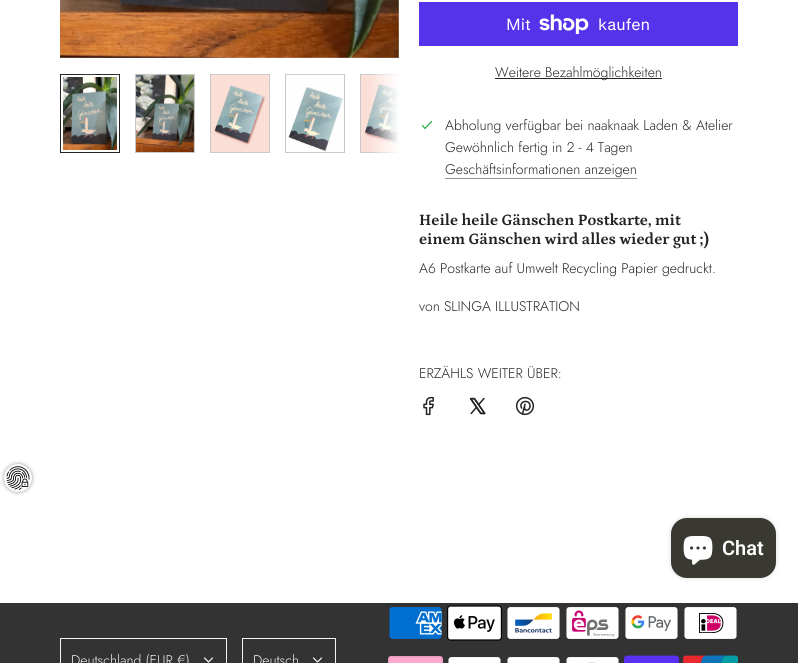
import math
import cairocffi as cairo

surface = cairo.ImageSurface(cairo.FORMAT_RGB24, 798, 663)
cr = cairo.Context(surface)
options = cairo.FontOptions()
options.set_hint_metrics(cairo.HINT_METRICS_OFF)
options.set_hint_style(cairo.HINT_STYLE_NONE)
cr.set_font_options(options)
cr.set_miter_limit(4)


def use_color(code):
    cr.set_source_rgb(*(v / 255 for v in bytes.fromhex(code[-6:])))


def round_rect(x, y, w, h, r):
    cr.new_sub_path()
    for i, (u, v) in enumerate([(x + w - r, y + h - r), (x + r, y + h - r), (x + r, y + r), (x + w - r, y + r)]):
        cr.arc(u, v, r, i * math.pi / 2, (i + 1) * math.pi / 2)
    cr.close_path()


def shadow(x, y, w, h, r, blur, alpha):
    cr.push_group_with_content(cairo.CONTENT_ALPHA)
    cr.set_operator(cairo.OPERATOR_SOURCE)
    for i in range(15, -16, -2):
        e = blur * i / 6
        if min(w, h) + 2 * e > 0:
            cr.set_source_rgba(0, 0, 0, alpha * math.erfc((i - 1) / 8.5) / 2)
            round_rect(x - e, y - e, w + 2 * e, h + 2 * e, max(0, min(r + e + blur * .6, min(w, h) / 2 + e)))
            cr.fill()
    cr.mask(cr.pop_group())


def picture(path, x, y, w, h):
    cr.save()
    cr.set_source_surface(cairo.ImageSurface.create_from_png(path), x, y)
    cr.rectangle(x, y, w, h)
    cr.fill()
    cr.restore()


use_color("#ffffff")
cr.paint()
picture("img1.png", 60, 0, 339, 58)
cr.rectangle(60.5, 74.5, 59, 78)
use_color("#242424")
cr.set_line_width(1)
cr.stroke()
picture("img2.png", 61, 74, 58, 76)
cr.rectangle(62, 76, 56, 75)
use_color("#ffffff")
cr.set_line_width(2)
cr.stroke()
cr.rectangle(135.5, 74.5, 59, 78)
use_color("#c8c8c8")
cr.set_line_width(1)
cr.stroke()
picture("img3.png", 136, 74, 58, 78)
cr.rectangle(210.5, 74.5, 59, 78)
cr.stroke()
picture("img4.png", 211, 74, 58, 78)
cr.rectangle(285.5, 74.5, 59, 78)
cr.stroke()
picture("img5.png", 286, 74, 58, 77)
cr.save()
cr.rectangle(60, 73, 339, 81)
cr.clip()
cr.rectangle(360.5, 74.5, 59, 78)
cr.stroke()
cr.restore()
picture("img6.png", 361, 74, 38, 78)
gradient = cairo.LinearGradient(369, 114, 399, 114)
gradient.add_color_stop_rgba(0, 1, 1, 1, 0)
gradient.add_color_stop_rgba(1, 1, 1, 1, 1)
cr.set_source(gradient)
cr.rectangle(370, 74, 29, 79)
cr.fill()
use_color("#5433eb")
cr.rectangle(419, 2, 319, 44)
cr.fill()
cr.select_font_face("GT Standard")
cr.set_font_size(16)
use_color("#ffffff")
cr.move_to(506, 30)
cr.show_text("Mit")
picture("img7.png", 539, 14, 50, 20)
cr.move_to(598, 30)
cr.show_text("kaufen")
use_color("#242424")
cr.rectangle(495, 78, 167, 1)
cr.fill()
cr.select_font_face("Jost Light")
cr.set_font_size(14)
cr.move_to(495, 77)
cr.show_text("Weitere Bezahlmöglichkeiten")
cr.new_path()
cr.move_to(422.5, 125.5)
cr.line_to(425, 128.5)
cr.line_to(431.5, 121.5)
use_color("#28a745")
cr.set_line_width(1.2)
cr.set_line_cap(cairo.LINE_CAP_ROUND)
cr.set_line_join(cairo.LINE_JOIN_ROUND)
cr.stroke()
use_color("#242424")
cr.move_to(445, 130)
cr.show_text("Abholung verfügbar bei naaknaak Laden & Atelier")
cr.move_to(445, 152)
cr.show_text("Gewöhnlich fertig in 2 - 4 Tagen")
cr.move_to(445, 174)
cr.show_text("Geschäftsinformationen anzeigen")
use_color("#929292")
cr.rectangle(445, 178, 192, 1)
cr.fill()
cr.select_font_face("Petrona", cairo.FONT_SLANT_NORMAL, cairo.FONT_WEIGHT_BOLD)
cr.set_font_size(16)
use_color("#242424")
cr.move_to(419, 225)
cr.show_text("Heile heile Gänschen Postkarte, mit")
cr.move_to(419, 244)
cr.show_text("einem Gänschen wird alles wieder gut ;)")
cr.select_font_face("Jost Light")
cr.set_font_size(14)
cr.move_to(419, 273)
cr.show_text("A6 Postkarte auf Umwelt Recycling Papier gedruckt.")
cr.move_to(419, 311)
cr.show_text("von SLINGA ILLUSTRATION")
cr.move_to(419, 378)
cr.show_text("ERZÄHLS WEITER ÜBER:")
picture("img8.png", 423, 396, 11, 20)
picture("img9.png", 469, 397, 17, 18)
picture("img10.png", 515, 396, 20, 20)
use_color("#000000")
shadow(4, 464, 28, 28, 14, 2, 0.4)
use_color("#ffffff")
cr.arc(18, 478, 14, 0, 2 * math.pi)
cr.fill()
picture("img11.png", 6, 466, 24, 24)
use_color("#000000")
shadow(671, 518, 105, 60, 16, 2.5, 0.15)
use_color("#393932")
round_rect(671, 518, 105, 60, 16)
cr.fill()
picture("img12.png", 683, 536, 30, 29)
cr.select_font_face("Roboto SemiBold")
cr.set_font_size(20)
use_color("#ffffff")
cr.move_to(722, 555)
cr.show_text("Chat")
use_color("#333333")
cr.rectangle(0, 603, 798, 60)
cr.fill()
cr.rectangle(60.5, 638.5, 166, 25)
use_color("#f3f3f3")
cr.set_line_width(1)
cr.set_line_cap(cairo.LINE_CAP_BUTT)
cr.set_line_join(cairo.LINE_JOIN_MITER)
cr.stroke()
cr.select_font_face("Jost Light")
cr.set_font_size(14)
cr.move_to(71, 665)
cr.show_text("Deutschland (EUR €)")
cr.new_path()
cr.move_to(204.5, 658)
cr.line_to(208.5, 662)
cr.line_to(212.5, 658)
cr.set_line_width(1.2)
cr.set_line_cap(cairo.LINE_CAP_ROUND)
cr.set_line_join(cairo.LINE_JOIN_ROUND)
cr.stroke()
cr.rectangle(242.5, 638.5, 93, 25)
cr.set_line_width(1)
cr.set_line_cap(cairo.LINE_CAP_BUTT)
cr.set_line_join(cairo.LINE_JOIN_MITER)
cr.stroke()
cr.move_to(253, 665)
cr.show_text("Deutsch")
cr.new_path()
cr.move_to(313.5, 658)
cr.line_to(317.5, 662)
cr.line_to(321.5, 658)
cr.set_line_width(1.2)
cr.set_line_cap(cairo.LINE_CAP_ROUND)
cr.set_line_join(cairo.LINE_JOIN_ROUND)
cr.stroke()
picture("img13.png", 389, 607, 53, 32)
picture("img14.png", 447, 605, 55, 36)
picture("img15.png", 507, 607, 53, 32)
picture("img16.png", 566, 607, 53, 32)
picture("img17.png", 625, 607, 53, 32)
picture("img18.png", 684, 607, 53, 32)
picture("img19.png", 388, 656, 55, 7)
picture("img20.png", 448, 657, 53, 6)
picture("img20.png", 507, 657, 53, 6)
picture("img21.png", 566, 657, 53, 6)
picture("img22.png", 624, 655, 55, 8)
picture("img23.png", 683, 655, 55, 8)
surface.write_to_png("result.png")
